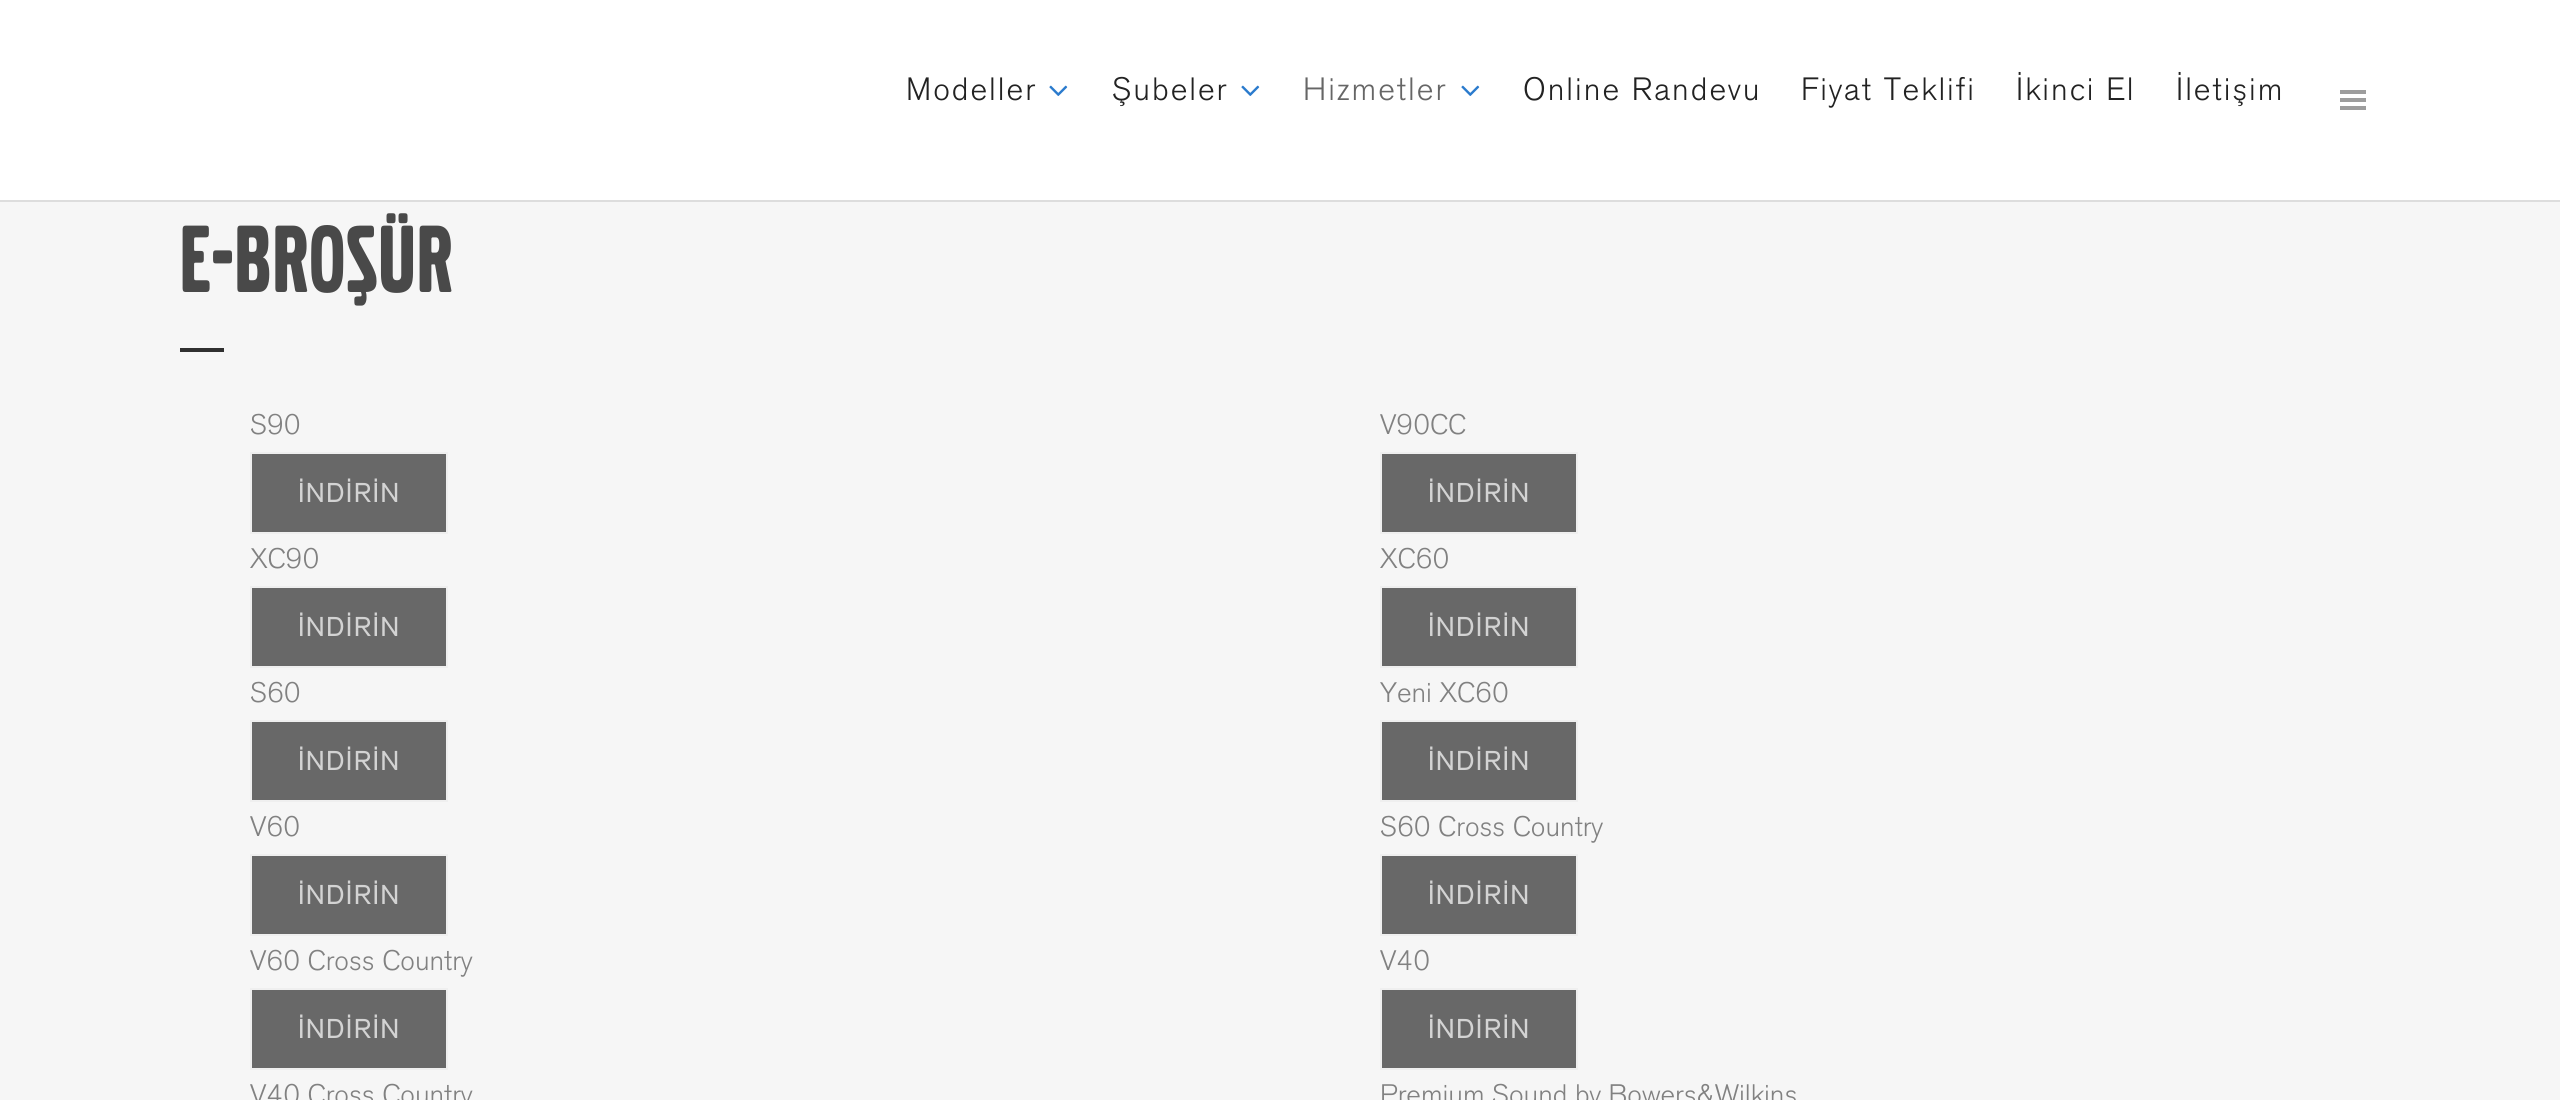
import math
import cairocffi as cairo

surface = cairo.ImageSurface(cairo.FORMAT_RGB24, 2560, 1100)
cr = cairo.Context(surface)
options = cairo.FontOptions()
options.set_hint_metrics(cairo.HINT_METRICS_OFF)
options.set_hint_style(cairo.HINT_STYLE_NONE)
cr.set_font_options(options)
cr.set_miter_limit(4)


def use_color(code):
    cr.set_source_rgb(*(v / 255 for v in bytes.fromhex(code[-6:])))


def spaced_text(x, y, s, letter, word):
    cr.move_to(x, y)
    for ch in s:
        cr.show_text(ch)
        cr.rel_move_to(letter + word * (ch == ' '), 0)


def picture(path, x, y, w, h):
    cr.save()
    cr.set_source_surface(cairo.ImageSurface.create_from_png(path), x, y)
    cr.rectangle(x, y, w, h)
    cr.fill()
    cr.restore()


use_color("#f6f6f6")
cr.paint()
use_color("#dddddd")
cr.rectangle(0, 200, 2560, 2)
cr.fill()
use_color("#ffffff")
cr.rectangle(0, 0, 2560, 200)
cr.fill()
cr.select_font_face("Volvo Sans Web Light")
cr.set_font_size(32)
use_color("#222222")
spaced_text(906, 100, "Modeller", 2, 0)
picture("img1.png", 1049, 85, 19, 11)
spaced_text(1112, 100, "Şubeler", 2, 0)
picture("img1.png", 1241, 85, 19, 11)
use_color("#666666")
spaced_text(1303, 100, "Hizmetler", 2, 0)
picture("img1.png", 1461, 85, 19, 11)
use_color("#222222")
spaced_text(1523, 100, "Online Randevu", 2, 0)
spaced_text(1801, 100, "Fiyat Teklifi", 2, 0)
spaced_text(2016, 100, "İkinci El", 2, 0)
spaced_text(2176, 100, "İletişim", 2, 0)
use_color("#9d9d9d")
cr.rectangle(2340, 98, 26, 4)
cr.fill()
cr.rectangle(2340, 90, 26, 4)
cr.fill()
cr.rectangle(2340, 106, 26, 4)
cr.fill()
cr.select_font_face("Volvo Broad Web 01 Medium")
cr.set_font_size(94)
use_color("#494949")
spaced_text(180, 292, "E-BROŞÜR", 2, 0)
use_color("#303030")
cr.rectangle(180, 348, 44, 4)
cr.fill()
cr.select_font_face("Volvo Sans Web Light")
cr.set_font_size(28)
use_color("#818181")
cr.move_to(250, 434)
cr.show_text("S90")
use_color("#686868")
cr.rectangle(251, 453, 196, 80)
cr.fill_preserve()
use_color("#efefef")
cr.stroke()
cr.select_font_face("Volvo Sans Web", cairo.FONT_SLANT_NORMAL, cairo.FONT_WEIGHT_BOLD)
cr.set_font_size(26)
use_color("#d3d3d3")
spaced_text(298, 502, "İNDİRİN", 2, 0)
cr.select_font_face("Volvo Sans Web Light")
cr.set_font_size(28)
use_color("#818181")
cr.move_to(250, 568)
cr.show_text("XC90")
use_color("#686868")
cr.rectangle(251, 587, 196, 80)
cr.fill_preserve()
use_color("#efefef")
cr.stroke()
cr.select_font_face("Volvo Sans Web", cairo.FONT_SLANT_NORMAL, cairo.FONT_WEIGHT_BOLD)
cr.set_font_size(26)
use_color("#d3d3d3")
spaced_text(298, 636, "İNDİRİN", 2, 0)
cr.select_font_face("Volvo Sans Web Light")
cr.set_font_size(28)
use_color("#818181")
cr.move_to(250, 702)
cr.show_text("S60")
use_color("#686868")
cr.rectangle(251, 721, 196, 80)
cr.fill_preserve()
use_color("#efefef")
cr.stroke()
cr.select_font_face("Volvo Sans Web", cairo.FONT_SLANT_NORMAL, cairo.FONT_WEIGHT_BOLD)
cr.set_font_size(26)
use_color("#d3d3d3")
spaced_text(298, 770, "İNDİRİN", 2, 0)
cr.select_font_face("Volvo Sans Web Light")
cr.set_font_size(28)
use_color("#818181")
cr.move_to(250, 836)
cr.show_text("V60")
use_color("#686868")
cr.rectangle(251, 855, 196, 80)
cr.fill_preserve()
use_color("#efefef")
cr.stroke()
cr.select_font_face("Volvo Sans Web", cairo.FONT_SLANT_NORMAL, cairo.FONT_WEIGHT_BOLD)
cr.set_font_size(26)
use_color("#d3d3d3")
spaced_text(298, 904, "İNDİRİN", 2, 0)
cr.select_font_face("Volvo Sans Web Light")
cr.set_font_size(28)
use_color("#818181")
cr.move_to(250, 970)
cr.show_text("V60 Cross Country")
use_color("#686868")
cr.rectangle(251, 989, 196, 80)
cr.fill_preserve()
use_color("#efefef")
cr.stroke()
cr.select_font_face("Volvo Sans Web", cairo.FONT_SLANT_NORMAL, cairo.FONT_WEIGHT_BOLD)
cr.set_font_size(26)
use_color("#d3d3d3")
spaced_text(298, 1038, "İNDİRİN", 2, 0)
cr.select_font_face("Volvo Sans Web Light")
cr.set_font_size(28)
use_color("#818181")
cr.move_to(250, 1104)
cr.show_text("V40 Cross Country")
cr.move_to(1380, 434)
cr.show_text("V90CC")
use_color("#686868")
cr.rectangle(1381, 453, 196, 80)
cr.fill_preserve()
use_color("#efefef")
cr.stroke()
cr.select_font_face("Volvo Sans Web", cairo.FONT_SLANT_NORMAL, cairo.FONT_WEIGHT_BOLD)
cr.set_font_size(26)
use_color("#d3d3d3")
spaced_text(1428, 502, "İNDİRİN", 2, 0)
cr.select_font_face("Volvo Sans Web Light")
cr.set_font_size(28)
use_color("#818181")
cr.move_to(1380, 568)
cr.show_text("XC60")
use_color("#686868")
cr.rectangle(1381, 587, 196, 80)
cr.fill_preserve()
use_color("#efefef")
cr.stroke()
cr.select_font_face("Volvo Sans Web", cairo.FONT_SLANT_NORMAL, cairo.FONT_WEIGHT_BOLD)
cr.set_font_size(26)
use_color("#d3d3d3")
spaced_text(1428, 636, "İNDİRİN", 2, 0)
cr.select_font_face("Volvo Sans Web Light")
cr.set_font_size(28)
use_color("#818181")
cr.move_to(1380, 702)
cr.show_text("Yeni XC60")
use_color("#686868")
cr.rectangle(1381, 721, 196, 80)
cr.fill_preserve()
use_color("#efefef")
cr.stroke()
cr.select_font_face("Volvo Sans Web", cairo.FONT_SLANT_NORMAL, cairo.FONT_WEIGHT_BOLD)
cr.set_font_size(26)
use_color("#d3d3d3")
spaced_text(1428, 770, "İNDİRİN", 2, 0)
cr.select_font_face("Volvo Sans Web Light")
cr.set_font_size(28)
use_color("#818181")
cr.move_to(1380, 836)
cr.show_text("S60 Cross Country")
use_color("#686868")
cr.rectangle(1381, 855, 196, 80)
cr.fill_preserve()
use_color("#efefef")
cr.stroke()
cr.select_font_face("Volvo Sans Web", cairo.FONT_SLANT_NORMAL, cairo.FONT_WEIGHT_BOLD)
cr.set_font_size(26)
use_color("#d3d3d3")
spaced_text(1428, 904, "İNDİRİN", 2, 0)
cr.select_font_face("Volvo Sans Web Light")
cr.set_font_size(28)
use_color("#818181")
cr.move_to(1380, 970)
cr.show_text("V40")
use_color("#686868")
cr.rectangle(1381, 989, 196, 80)
cr.fill_preserve()
use_color("#efefef")
cr.stroke()
cr.select_font_face("Volvo Sans Web", cairo.FONT_SLANT_NORMAL, cairo.FONT_WEIGHT_BOLD)
cr.set_font_size(26)
use_color("#d3d3d3")
spaced_text(1428, 1038, "İNDİRİN", 2, 0)
cr.select_font_face("Volvo Sans Web Light")
cr.set_font_size(28)
use_color("#818181")
cr.move_to(1380, 1104)
cr.show_text("Premium Sound by Bowers&Wilkins")
surface.write_to_png("result.png")
